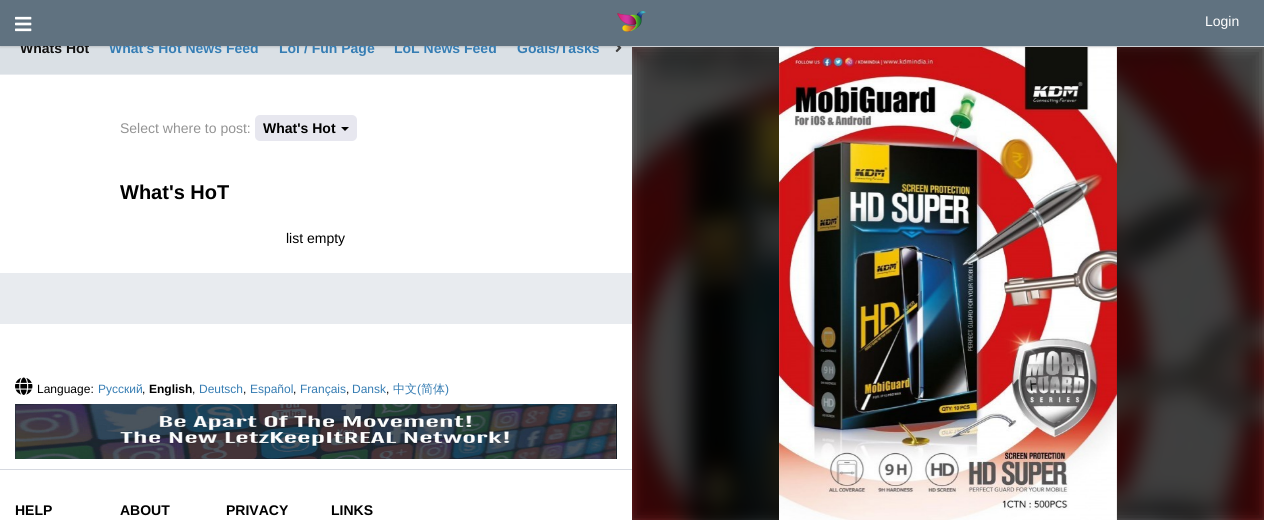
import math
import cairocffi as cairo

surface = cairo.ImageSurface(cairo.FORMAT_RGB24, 1264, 520)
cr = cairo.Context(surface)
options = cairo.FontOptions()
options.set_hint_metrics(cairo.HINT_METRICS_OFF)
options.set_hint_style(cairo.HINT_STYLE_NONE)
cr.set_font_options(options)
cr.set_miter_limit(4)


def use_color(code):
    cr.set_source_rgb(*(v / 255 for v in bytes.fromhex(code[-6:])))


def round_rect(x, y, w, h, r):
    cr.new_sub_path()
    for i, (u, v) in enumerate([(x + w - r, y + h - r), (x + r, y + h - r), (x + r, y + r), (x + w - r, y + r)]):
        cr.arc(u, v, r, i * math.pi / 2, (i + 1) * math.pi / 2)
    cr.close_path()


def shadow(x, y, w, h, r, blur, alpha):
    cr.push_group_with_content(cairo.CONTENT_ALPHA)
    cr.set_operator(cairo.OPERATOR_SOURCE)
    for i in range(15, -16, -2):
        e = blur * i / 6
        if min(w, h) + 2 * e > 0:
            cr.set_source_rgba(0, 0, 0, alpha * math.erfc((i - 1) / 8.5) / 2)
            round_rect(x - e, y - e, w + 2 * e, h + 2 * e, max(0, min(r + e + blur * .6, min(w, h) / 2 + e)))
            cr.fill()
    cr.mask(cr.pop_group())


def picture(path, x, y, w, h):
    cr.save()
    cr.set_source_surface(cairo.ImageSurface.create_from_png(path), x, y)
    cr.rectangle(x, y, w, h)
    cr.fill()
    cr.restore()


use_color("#e8ebef")
cr.paint()
picture("img4.png", 632, 47, 632, 473)
use_color("#ffffff")
cr.rectangle(0, 324, 632, 196)
cr.fill()
picture("img7.png", 15, 404, 602, 55)
use_color("#d6d9e0")
cr.rectangle(0, 469, 632, 1)
cr.fill()
cr.save()
cr.rectangle(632, 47, 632, 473)
cr.clip()
use_color("#000000")
shadow(622, 37, 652, 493, 0, 10, 0.75)
cr.restore()
use_color("#dae0e5")
cr.rectangle(0, 46, 612, 28)
cr.fill()
gradient = cairo.LinearGradient(605, 48, 632, 48)
gradient.add_color_stop_rgba(0, 0.855, 0.878, 0.898, 0)
gradient.add_color_stop_rgba(0.25, 0.855, 0.878, 0.898, 1)
gradient.add_color_stop_rgba(1, 0.855, 0.878, 0.898, 1)
cr.set_source(gradient)
cr.rectangle(612, 46, 20, 28)
cr.fill()
picture("img3.png", 615, 46, 7, 7)
picture("img5.png", 779, 47, 338, 473)
use_color("#000000")
shadow(0, 1, 1264, 46, 0, 1, 0.15)
cr.select_font_face("Liberation Sans", cairo.FONT_SLANT_NORMAL, cairo.FONT_WEIGHT_BOLD)
cr.set_font_size(14)
use_color("#111111")
cr.move_to(20, 53)
cr.show_text("Whats Hot")
use_color("#367db3")
cr.move_to(109, 53)
cr.show_text("What's Hot News Feed")
cr.move_to(279, 53)
cr.show_text("Lol / Fun Page")
cr.move_to(394, 53)
cr.show_text("LoL News Feed")
cr.move_to(517, 53)
cr.show_text("Goals/Tasks")
use_color("#607280")
cr.rectangle(0, 0, 1264, 46)
cr.fill()
picture("img1.png", 15, 16, 17, 16)
picture("img2.png", 617, 11, 29, 21)
cr.select_font_face("Liberation Sans")
use_color("#ffffff")
cr.move_to(1205, 26)
cr.show_text("Login")
cr.rectangle(0, 75, 632, 198)
cr.fill()
use_color("#939393")
cr.move_to(120, 133)
cr.show_text("Select where to post:")
use_color("#e7e7ef")
round_rect(255, 115, 102, 26, 5)
cr.fill()
cr.select_font_face("Liberation Sans", cairo.FONT_SLANT_NORMAL, cairo.FONT_WEIGHT_BOLD)
use_color("#000000")
cr.move_to(263, 133)
cr.show_text("What's Hot")
cr.new_path()
cr.move_to(341, 127)
cr.line_to(349, 127)
cr.line_to(345, 131)
cr.close_path()
cr.fill()
cr.set_font_size(20)
cr.move_to(120, 199)
cr.show_text("What's HoT")
cr.select_font_face("Liberation Sans")
cr.set_font_size(14)
cr.move_to(286, 243)
cr.show_text("list empty")
picture("img6.png", 15, 377, 18, 18)
cr.set_font_size(12)
cr.move_to(37, 393)
cr.show_text("Language:")
use_color("#367db3")
cr.move_to(98, 393)
cr.show_text("Русский")
use_color("#000000")
cr.move_to(142, 393)
cr.show_text(",")
cr.select_font_face("Liberation Sans", cairo.FONT_SLANT_NORMAL, cairo.FONT_WEIGHT_BOLD)
cr.move_to(149, 393)
cr.show_text("English")
cr.select_font_face("Liberation Sans")
cr.move_to(192, 393)
cr.show_text(",")
use_color("#367db3")
cr.move_to(199, 393)
cr.show_text("Deutsch")
use_color("#000000")
cr.move_to(243, 393)
cr.show_text(",")
use_color("#367db3")
cr.move_to(250, 393)
cr.show_text("Español")
use_color("#000000")
cr.move_to(293, 393)
cr.show_text(",")
use_color("#367db3")
cr.move_to(300, 393)
cr.show_text("Français")
use_color("#000000")
cr.move_to(346, 393)
cr.show_text(",")
use_color("#367db3")
cr.move_to(352, 393)
cr.show_text("Dansk")
use_color("#000000")
cr.move_to(386, 393)
cr.show_text(",")
cr.select_font_face("WenQuanYi Zen Hei Medium")
use_color("#367db3")
cr.move_to(393, 393)
cr.show_text("中文")
cr.select_font_face("Liberation Sans")
cr.move_to(417, 393)
cr.show_text("(")
cr.select_font_face("WenQuanYi Zen Hei Medium")
cr.move_to(421, 393)
cr.show_text("简体")
cr.select_font_face("Liberation Sans")
cr.move_to(445, 393)
cr.show_text(")")
cr.select_font_face("Liberation Sans", cairo.FONT_SLANT_NORMAL, cairo.FONT_WEIGHT_BOLD)
cr.set_font_size(14)
use_color("#000000")
cr.move_to(15, 515)
cr.show_text("HELP")
cr.move_to(120, 515)
cr.show_text("ABOUT")
cr.move_to(226, 515)
cr.show_text("PRIVACY")
cr.move_to(331, 515)
cr.show_text("LINKS")
surface.write_to_png("result.png")
